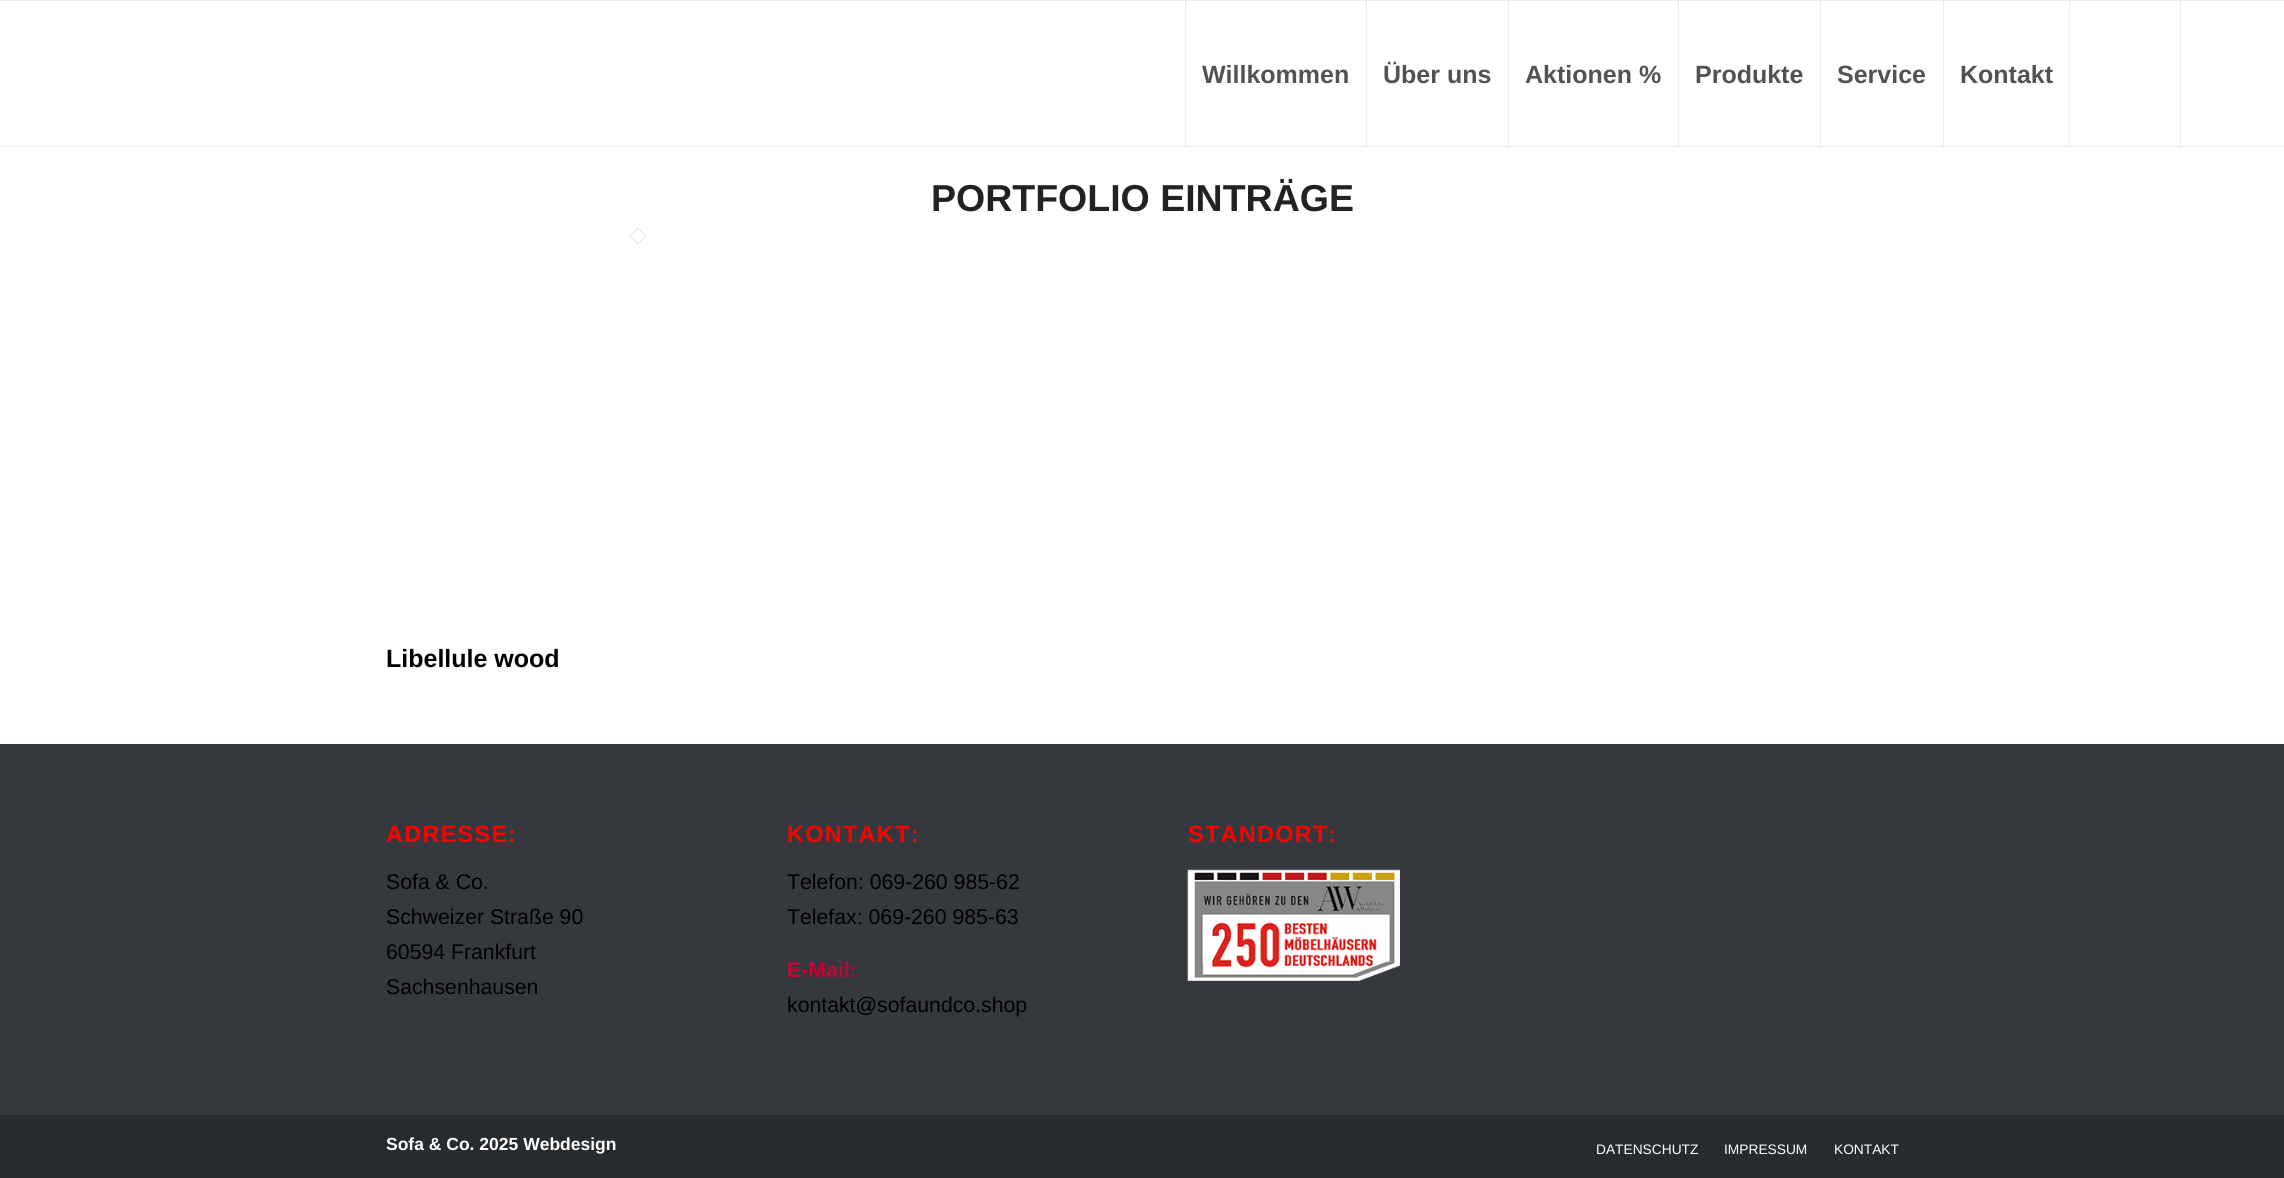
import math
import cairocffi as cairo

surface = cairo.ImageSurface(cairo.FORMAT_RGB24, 2284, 1178)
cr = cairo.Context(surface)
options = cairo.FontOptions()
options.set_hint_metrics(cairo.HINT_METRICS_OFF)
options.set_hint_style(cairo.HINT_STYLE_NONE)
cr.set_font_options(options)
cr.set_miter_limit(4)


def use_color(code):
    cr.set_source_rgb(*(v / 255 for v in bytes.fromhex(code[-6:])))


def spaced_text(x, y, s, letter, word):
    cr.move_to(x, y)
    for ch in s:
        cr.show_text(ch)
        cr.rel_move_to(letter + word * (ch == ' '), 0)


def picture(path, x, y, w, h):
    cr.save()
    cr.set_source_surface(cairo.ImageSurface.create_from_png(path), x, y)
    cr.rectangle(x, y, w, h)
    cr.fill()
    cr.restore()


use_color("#ffffff")
cr.paint()
use_color("#ebebeb")
cr.rectangle(0, 0, 2284, 1)
cr.fill()
cr.rectangle(0, 146, 2284, 1)
cr.fill()
cr.rectangle(1185, 1, 1, 145)
cr.fill()
cr.select_font_face("Liberation Sans", cairo.FONT_SLANT_NORMAL, cairo.FONT_WEIGHT_BOLD)
cr.set_font_size(25)
use_color("#525252")
cr.move_to(1202, 83)
cr.show_text("Willkommen")
use_color("#ebebeb")
cr.rectangle(1366, 1, 1, 145)
cr.fill()
use_color("#525252")
cr.move_to(1383, 83)
cr.show_text("Über uns")
use_color("#ebebeb")
cr.rectangle(1508, 1, 1, 145)
cr.fill()
use_color("#525252")
cr.move_to(1525, 83)
cr.show_text("Aktionen %")
use_color("#ebebeb")
cr.rectangle(1678, 1, 1, 145)
cr.fill()
use_color("#525252")
cr.move_to(1695, 83)
cr.show_text("Produkte")
use_color("#ebebeb")
cr.rectangle(1820, 1, 1, 145)
cr.fill()
use_color("#525252")
cr.move_to(1837, 83)
cr.show_text("Service")
use_color("#ebebeb")
cr.rectangle(1943, 1, 1, 145)
cr.fill()
use_color("#525252")
cr.move_to(1960, 83)
cr.show_text("Kontakt")
use_color("#ebebeb")
cr.rectangle(2180, 1, 1, 145)
cr.fill()
cr.rectangle(2069, 1, 1, 145)
cr.fill()
cr.set_font_size(37.5)
use_color("#222222")
cr.move_to(931, 211)
cr.show_text("PORTFOLIO EINTRÄGE")
cr.new_path()
cr.move_to(638, 228)
cr.line_to(646, 236)
cr.line_to(638, 244)
cr.line_to(630, 236)
cr.close_path()
use_color("#ebebeb")
cr.set_line_width(1.3)
cr.stroke()
cr.set_font_size(25)
use_color("#000000")
cr.move_to(386, 667)
cr.show_text("Libellule wood")
use_color("#35383c")
cr.rectangle(0, 744, 2284, 371)
cr.fill()
cr.set_font_size(23.5)
use_color("#ff0000")
spaced_text(386, 842, "ADRESSE:", 1.25, 0)
cr.select_font_face("Liberation Sans")
cr.set_font_size(21.25)
use_color("#000000")
cr.move_to(386, 889)
cr.show_text("Sofa & Co.")
cr.move_to(386, 924)
cr.show_text("Schweizer Straße 90")
cr.move_to(386, 959)
cr.show_text("60594 Frankfurt")
cr.move_to(386, 994)
cr.show_text("Sachsenhausen")
cr.select_font_face("Liberation Sans", cairo.FONT_SLANT_NORMAL, cairo.FONT_WEIGHT_BOLD)
cr.set_font_size(23.5)
use_color("#ff0000")
spaced_text(787, 842, "KONTAKT:", 1.25, 0)
cr.select_font_face("Liberation Sans")
cr.set_font_size(21.25)
use_color("#000000")
cr.move_to(787, 889)
cr.show_text("Telefon: 069-260 985-62")
cr.move_to(787, 924)
cr.show_text("Telefax: 069-260 985-63")
cr.select_font_face("Liberation Sans", cairo.FONT_SLANT_NORMAL, cairo.FONT_WEIGHT_BOLD)
use_color("#cc0033")
cr.move_to(787, 977)
cr.show_text("E-Mail:")
cr.select_font_face("Liberation Sans")
use_color("#000000")
cr.move_to(787, 1012)
cr.show_text("kontakt@sofaundco.shop")
cr.select_font_face("Liberation Sans", cairo.FONT_SLANT_NORMAL, cairo.FONT_WEIGHT_BOLD)
cr.set_font_size(23.5)
use_color("#ff0000")
spaced_text(1188, 842, "STANDORT:", 1.25, 0)
picture("img1.png", 1187, 869, 213, 112)
use_color("#282b2e")
cr.rectangle(0, 1115, 2284, 63)
cr.fill()
cr.set_font_size(17.5)
use_color("#ffffff")
cr.move_to(386, 1150)
cr.show_text("Sofa & Co. 2025 Webdesign")
cr.select_font_face("Liberation Sans")
cr.set_font_size(13.75)
cr.move_to(1596, 1154)
cr.show_text("DATENSCHUTZ")
cr.move_to(1724, 1154)
cr.show_text("IMPRESSUM")
cr.move_to(1834, 1154)
cr.show_text("KONTAKT")
surface.write_to_png("result.png")
